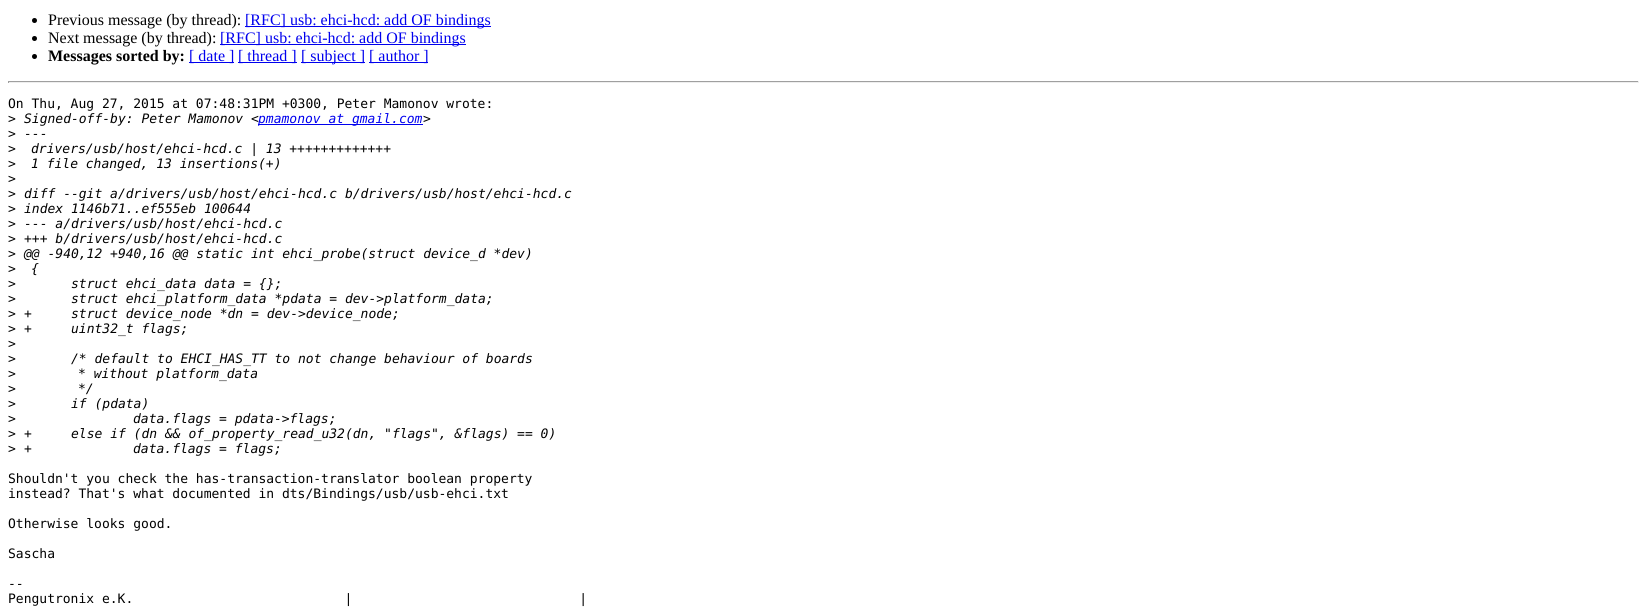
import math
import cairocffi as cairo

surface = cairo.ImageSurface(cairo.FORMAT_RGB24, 1647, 609)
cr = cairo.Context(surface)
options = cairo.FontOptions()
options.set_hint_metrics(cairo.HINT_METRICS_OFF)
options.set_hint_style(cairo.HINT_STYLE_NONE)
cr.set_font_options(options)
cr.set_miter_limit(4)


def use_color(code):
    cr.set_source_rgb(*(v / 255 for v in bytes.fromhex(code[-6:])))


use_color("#ffffff")
cr.paint()
use_color("#000000")
cr.arc(34.5, 20.5, 2.5, 0, 2 * math.pi)
cr.fill()
cr.select_font_face("Liberation Serif")
cr.set_font_size(16)
cr.move_to(48, 25)
cr.show_text("Previous message (by thread):")
use_color("#0000ee")
cr.rectangle(245, 26, 246, 1)
cr.fill()
cr.move_to(245, 25)
cr.show_text("[RFC] usb: ehci-hcd: add OF bindings")
use_color("#000000")
cr.new_path()
cr.arc(34.5, 38.5, 2.5, 0, 2 * math.pi)
cr.fill()
cr.move_to(48, 43)
cr.show_text("Next message (by thread):")
use_color("#0000ee")
cr.rectangle(220, 44, 246, 1)
cr.fill()
cr.move_to(220, 43)
cr.show_text("[RFC] usb: ehci-hcd: add OF bindings")
use_color("#000000")
cr.new_path()
cr.arc(34.5, 56.5, 2.5, 0, 2 * math.pi)
cr.fill()
cr.select_font_face("Liberation Serif", cairo.FONT_SLANT_NORMAL, cairo.FONT_WEIGHT_BOLD)
cr.move_to(48, 61)
cr.show_text("Messages sorted by:")
use_color("#0000ee")
cr.rectangle(189, 62, 45, 1)
cr.fill()
cr.select_font_face("Liberation Serif")
cr.move_to(189, 61)
cr.show_text("[ date ]")
cr.rectangle(238, 62, 59, 1)
cr.fill()
cr.move_to(238, 61)
cr.show_text("[ thread ]")
cr.rectangle(301, 62, 64, 1)
cr.fill()
cr.move_to(301, 61)
cr.show_text("[ subject ]")
cr.rectangle(369, 62, 59, 1)
cr.fill()
cr.move_to(369, 61)
cr.show_text("[ author ]")
use_color("#9f9f9f")
cr.rectangle(8, 81, 1631, 1)
cr.fill()
use_color("#eeeeee")
cr.rectangle(1638, 81, 1, 2)
cr.fill()
cr.rectangle(8, 82, 1631, 1)
cr.fill()
use_color("#9f9f9f")
cr.rectangle(8, 81, 1, 2)
cr.fill()
cr.select_font_face("DejaVu Sans Mono")
cr.set_font_size(13)
use_color("#000000")
cr.move_to(8, 108)
cr.show_text("On Thu, Aug 27, 2015 at 07:48:31PM +0300, Peter Mamonov wrote:")
cr.move_to(8, 123)
cr.show_text(">")
cr.select_font_face("DejaVu Sans Mono", cairo.FONT_SLANT_ITALIC)
cr.move_to(24, 123)
cr.show_text("Signed-off-by: Peter Mamonov <")
use_color("#0000ee")
cr.rectangle(258, 124, 165, 1)
cr.fill()
cr.move_to(258, 123)
cr.show_text("pmamonov at gmail.com")
use_color("#000000")
cr.move_to(423, 123)
cr.show_text(">")
cr.select_font_face("DejaVu Sans Mono")
cr.move_to(8, 138)
cr.show_text(">")
cr.select_font_face("DejaVu Sans Mono", cairo.FONT_SLANT_ITALIC)
cr.move_to(24, 138)
cr.show_text("---")
cr.select_font_face("DejaVu Sans Mono")
cr.move_to(8, 153)
cr.show_text(">")
cr.select_font_face("DejaVu Sans Mono", cairo.FONT_SLANT_ITALIC)
cr.move_to(31, 153)
cr.show_text("drivers/usb/host/ehci-hcd.c | 13 +++++++++++++")
cr.select_font_face("DejaVu Sans Mono")
cr.move_to(8, 168)
cr.show_text(">")
cr.select_font_face("DejaVu Sans Mono", cairo.FONT_SLANT_ITALIC)
cr.move_to(31, 168)
cr.show_text("1 file changed, 13 insertions(+)")
cr.select_font_face("DejaVu Sans Mono")
cr.move_to(8, 183)
cr.show_text(">")
cr.move_to(8, 198)
cr.show_text(">")
cr.select_font_face("DejaVu Sans Mono", cairo.FONT_SLANT_ITALIC)
cr.move_to(24, 198)
cr.show_text("diff --git a/drivers/usb/host/ehci-hcd.c b/drivers/usb/host/ehci-hcd.c")
cr.select_font_face("DejaVu Sans Mono")
cr.move_to(8, 213)
cr.show_text(">")
cr.select_font_face("DejaVu Sans Mono", cairo.FONT_SLANT_ITALIC)
cr.move_to(24, 213)
cr.show_text("index 1146b71..ef555eb 100644")
cr.select_font_face("DejaVu Sans Mono")
cr.move_to(8, 228)
cr.show_text(">")
cr.select_font_face("DejaVu Sans Mono", cairo.FONT_SLANT_ITALIC)
cr.move_to(24, 228)
cr.show_text("--- a/drivers/usb/host/ehci-hcd.c")
cr.select_font_face("DejaVu Sans Mono")
cr.move_to(8, 243)
cr.show_text(">")
cr.select_font_face("DejaVu Sans Mono", cairo.FONT_SLANT_ITALIC)
cr.move_to(24, 243)
cr.show_text("+++ b/drivers/usb/host/ehci-hcd.c")
cr.select_font_face("DejaVu Sans Mono")
cr.move_to(8, 258)
cr.show_text(">")
cr.select_font_face("DejaVu Sans Mono", cairo.FONT_SLANT_ITALIC)
cr.move_to(24, 258)
cr.show_text("@@ -940,12 +940,16 @@ static int ehci_probe(struct device_d *dev)")
cr.select_font_face("DejaVu Sans Mono")
cr.move_to(8, 273)
cr.show_text(">")
cr.select_font_face("DejaVu Sans Mono", cairo.FONT_SLANT_ITALIC)
cr.move_to(31, 273)
cr.show_text("{")
cr.select_font_face("DejaVu Sans Mono")
cr.move_to(8, 288)
cr.show_text(">")
cr.select_font_face("DejaVu Sans Mono", cairo.FONT_SLANT_ITALIC)
cr.move_to(71, 288)
cr.show_text("struct ehci_data data = {};")
cr.select_font_face("DejaVu Sans Mono")
cr.move_to(8, 303)
cr.show_text(">")
cr.select_font_face("DejaVu Sans Mono", cairo.FONT_SLANT_ITALIC)
cr.move_to(71, 303)
cr.show_text("struct ehci_platform_data *pdata = dev->platform_data;")
cr.select_font_face("DejaVu Sans Mono")
cr.move_to(8, 318)
cr.show_text(">")
cr.select_font_face("DejaVu Sans Mono", cairo.FONT_SLANT_ITALIC)
cr.move_to(24, 318)
cr.show_text("+")
cr.move_to(71, 318)
cr.show_text("struct device_node *dn = dev->device_node;")
cr.select_font_face("DejaVu Sans Mono")
cr.move_to(8, 333)
cr.show_text(">")
cr.select_font_face("DejaVu Sans Mono", cairo.FONT_SLANT_ITALIC)
cr.move_to(24, 333)
cr.show_text("+")
cr.move_to(71, 333)
cr.show_text("uint32_t flags;")
cr.select_font_face("DejaVu Sans Mono")
cr.move_to(8, 348)
cr.show_text(">")
cr.move_to(8, 363)
cr.show_text(">")
cr.select_font_face("DejaVu Sans Mono", cairo.FONT_SLANT_ITALIC)
cr.move_to(71, 363)
cr.show_text("/* default to EHCI_HAS_TT to not change behaviour of boards")
cr.select_font_face("DejaVu Sans Mono")
cr.move_to(8, 378)
cr.show_text(">")
cr.select_font_face("DejaVu Sans Mono", cairo.FONT_SLANT_ITALIC)
cr.move_to(78, 378)
cr.show_text("* without platform_data")
cr.select_font_face("DejaVu Sans Mono")
cr.move_to(8, 393)
cr.show_text(">")
cr.select_font_face("DejaVu Sans Mono", cairo.FONT_SLANT_ITALIC)
cr.move_to(78, 393)
cr.show_text("*/")
cr.select_font_face("DejaVu Sans Mono")
cr.move_to(8, 408)
cr.show_text(">")
cr.select_font_face("DejaVu Sans Mono", cairo.FONT_SLANT_ITALIC)
cr.move_to(71, 408)
cr.show_text("if (pdata)")
cr.select_font_face("DejaVu Sans Mono")
cr.move_to(8, 423)
cr.show_text(">")
cr.select_font_face("DejaVu Sans Mono", cairo.FONT_SLANT_ITALIC)
cr.move_to(133, 423)
cr.show_text("data.flags = pdata->flags;")
cr.select_font_face("DejaVu Sans Mono")
cr.move_to(8, 438)
cr.show_text(">")
cr.select_font_face("DejaVu Sans Mono", cairo.FONT_SLANT_ITALIC)
cr.move_to(24, 438)
cr.show_text("+")
cr.move_to(71, 438)
cr.show_text("else if (dn && of_property_read_u32(dn, \"flags\", &flags) == 0)")
cr.select_font_face("DejaVu Sans Mono")
cr.move_to(8, 453)
cr.show_text(">")
cr.select_font_face("DejaVu Sans Mono", cairo.FONT_SLANT_ITALIC)
cr.move_to(24, 453)
cr.show_text("+")
cr.move_to(133, 453)
cr.show_text("data.flags = flags;")
cr.select_font_face("DejaVu Sans Mono")
cr.move_to(8, 483)
cr.show_text("Shouldn't you check the has-transaction-translator boolean property")
cr.move_to(8, 498)
cr.show_text("instead? That's what documented in dts/Bindings/usb/usb-ehci.txt")
cr.move_to(8, 528)
cr.show_text("Otherwise looks good.")
cr.move_to(8, 558)
cr.show_text("Sascha")
cr.move_to(8, 588)
cr.show_text("--")
cr.move_to(8, 603)
cr.show_text("Pengutronix e.K.                           |                             |")
surface.write_to_png("result.png")
